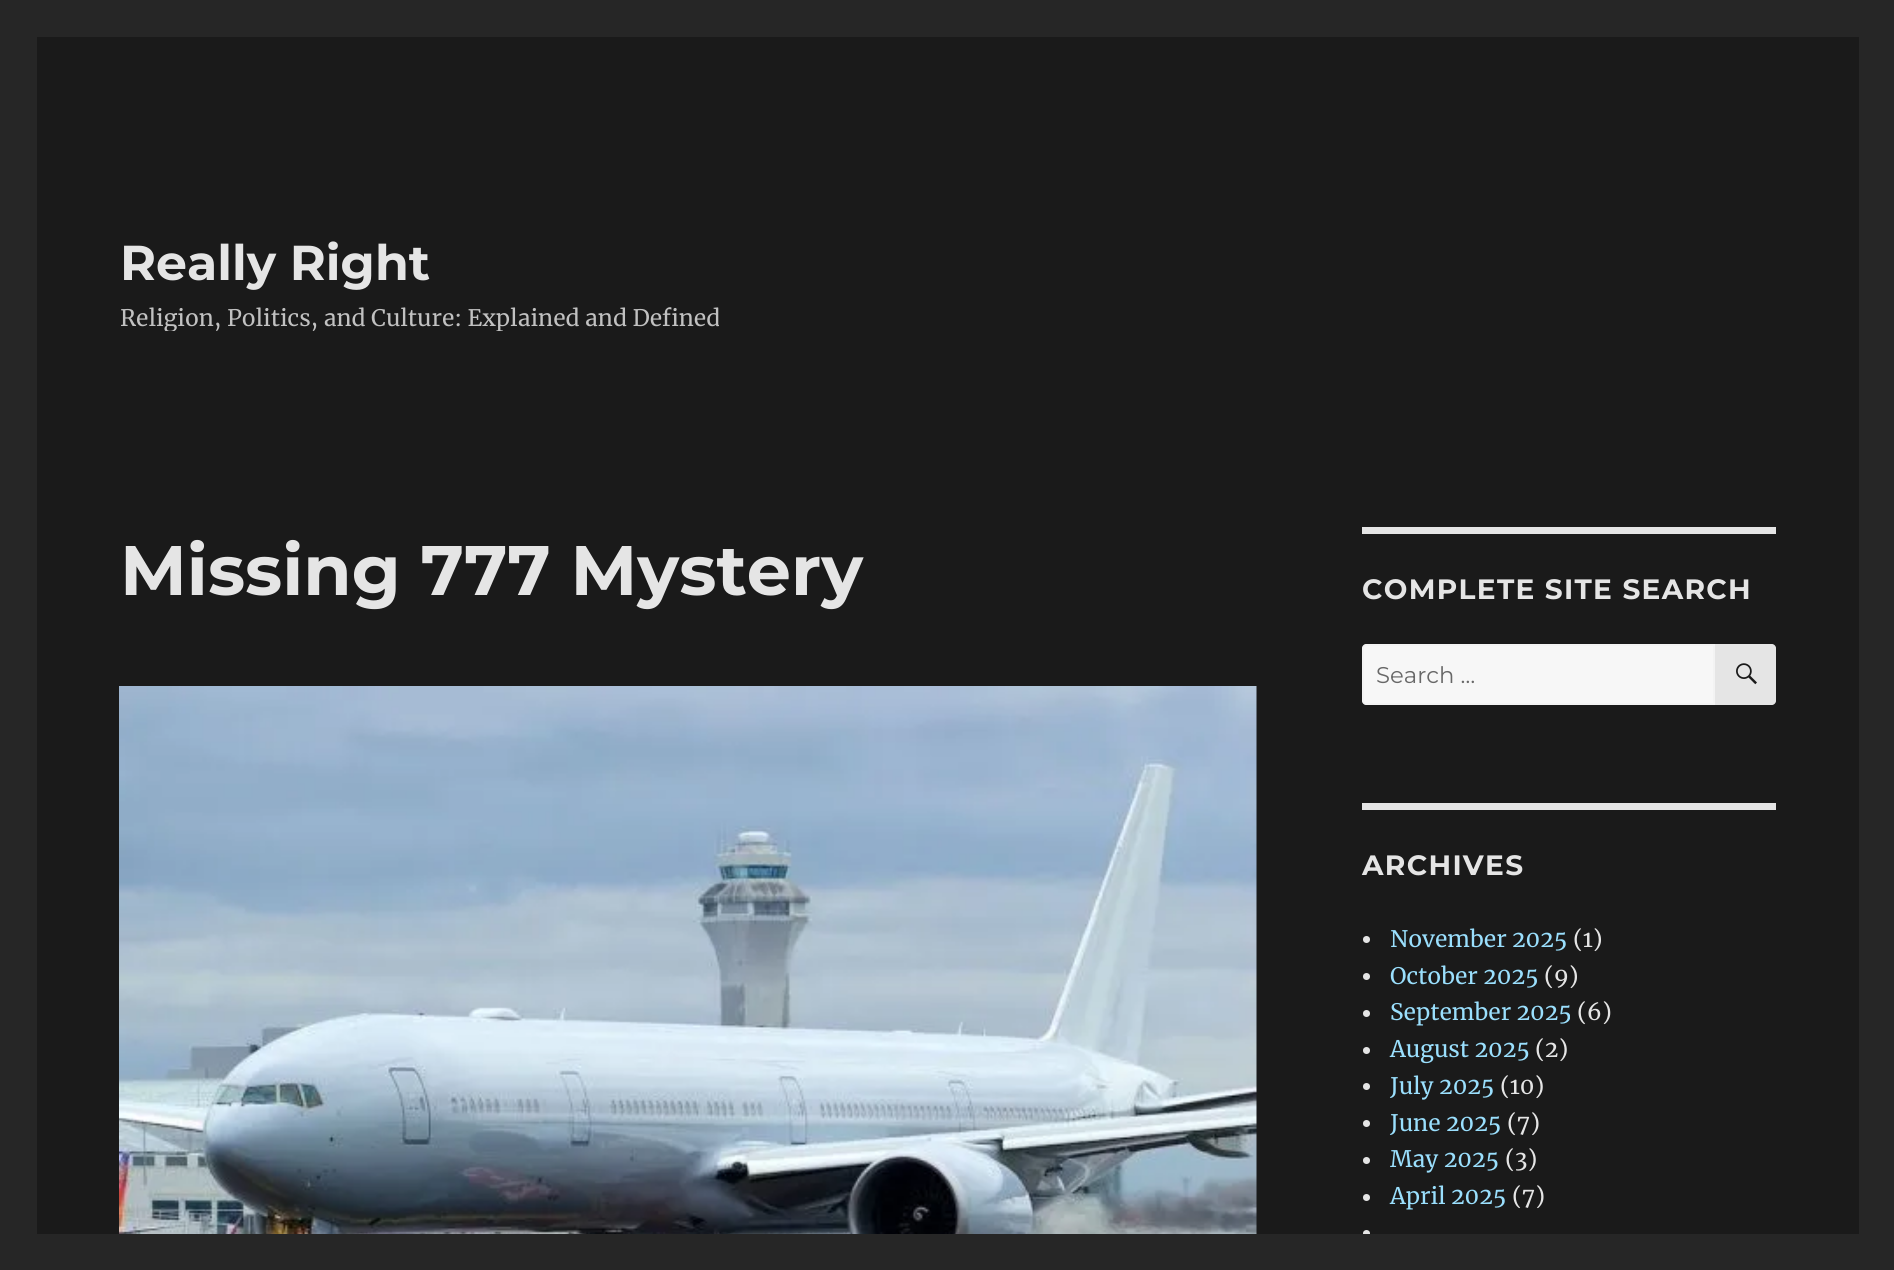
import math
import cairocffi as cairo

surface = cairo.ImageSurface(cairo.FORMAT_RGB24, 1894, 1270)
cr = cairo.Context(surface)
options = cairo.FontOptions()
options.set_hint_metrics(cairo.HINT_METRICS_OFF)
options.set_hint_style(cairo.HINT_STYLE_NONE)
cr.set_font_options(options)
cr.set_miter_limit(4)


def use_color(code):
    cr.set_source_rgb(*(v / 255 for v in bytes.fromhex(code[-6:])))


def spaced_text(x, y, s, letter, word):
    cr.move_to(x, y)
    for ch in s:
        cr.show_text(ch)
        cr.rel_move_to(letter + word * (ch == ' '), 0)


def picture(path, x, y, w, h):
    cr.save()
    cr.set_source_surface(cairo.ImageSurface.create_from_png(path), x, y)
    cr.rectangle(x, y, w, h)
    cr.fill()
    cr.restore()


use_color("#262626")
cr.paint()
use_color("#1a1a1a")
cr.rectangle(37, 37, 1822, 1197)
cr.fill()
cr.select_font_face("Montserrat Thin")
cr.set_font_size(49)
use_color("#e5e5e5")
cr.move_to(120, 280)
cr.show_text("Really Right")
cr.save()
cr.rectangle(119, 233, 600, 98)
cr.clip()
cr.select_font_face("Merriweather")
cr.set_font_size(22.75)
use_color("#c1c1c1")
cr.move_to(120, 326)
cr.show_text("Religion, Politics, and Culture: Explained and Defined")
cr.restore()
cr.set_font_size(70)
cr.move_to(120, 595)
cr.show_text("Missing 777 Mystery")
picture("img1.png", 119, 686, 1138, 548)
cr.rectangle(1362, 527, 414, 7)
cr.fill()
cr.set_font_size(28)
spaced_text(1362, 599, "COMPLETE SITE SEARCH", 1.3, 0)
use_color("#f7f7f7")
cr.new_path()
cr.move_to(1366, 644)
cr.line_to(1715, 644)
cr.line_to(1715, 705)
cr.line_to(1366, 705)
cr.curve_to(1364, 705, 1362, 703, 1362, 701)
cr.line_to(1362, 648)
cr.curve_to(1362, 646, 1364, 644, 1366, 644)
cr.close_path()
cr.fill()
cr.new_path()
cr.move_to(1366, 645)
cr.line_to(1714, 645)
cr.line_to(1714, 704)
cr.line_to(1366, 704)
cr.curve_to(1364.5, 704, 1363, 702.5, 1363, 701)
cr.line_to(1363, 648)
cr.curve_to(1363, 646.5, 1364.5, 645, 1366, 645)
cr.close_path()
cr.set_source_rgba(0.898, 0.898, 0.898, 0.2)
cr.stroke()
cr.select_font_face("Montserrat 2 Thin")
cr.set_font_size(22.75)
use_color("#686868")
cr.move_to(1376, 683)
cr.show_text("Search …")
use_color("#e5e5e5")
cr.new_path()
cr.move_to(1715, 644)
cr.line_to(1772, 644)
cr.curve_to(1774, 644, 1776, 646, 1776, 648)
cr.line_to(1776, 701)
cr.curve_to(1776, 703, 1774, 705, 1772, 705)
cr.line_to(1715, 705)
cr.close_path()
cr.fill()
picture("img2.png", 1736, 663, 21, 22)
cr.rectangle(1362, 803, 414, 7)
cr.fill()
cr.select_font_face("Montserrat Thin")
cr.set_font_size(28)
spaced_text(1362, 875, "ARCHIVES", 1.3, 0)
cr.new_path()
cr.arc(1366.5, 939.5, 3.5, 0, 2 * math.pi)
cr.fill()
cr.select_font_face("Merriweather")
cr.set_font_size(22.75)
use_color("#9adffd")
cr.move_to(1390, 947)
cr.show_text("November 2025")
use_color("#e5e5e5")
cr.move_to(1573, 947)
cr.show_text("(1)")
cr.new_path()
cr.arc(1366.5, 976.5, 3.5, 0, 2 * math.pi)
cr.fill()
use_color("#9adffd")
cr.move_to(1390, 984)
cr.show_text("October 2025")
use_color("#e5e5e5")
cr.move_to(1544, 984)
cr.show_text("(9)")
cr.new_path()
cr.arc(1366.5, 1013.5, 3.5, 0, 2 * math.pi)
cr.fill()
use_color("#9adffd")
cr.move_to(1390, 1020)
cr.show_text("September 2025")
use_color("#e5e5e5")
cr.move_to(1577, 1020)
cr.show_text("(6)")
cr.new_path()
cr.arc(1366.5, 1050.5, 3.5, 0, 2 * math.pi)
cr.fill()
use_color("#9adffd")
cr.move_to(1390, 1057)
cr.show_text("August 2025")
use_color("#e5e5e5")
cr.move_to(1535, 1057)
cr.show_text("(2)")
cr.new_path()
cr.arc(1366.5, 1086.5, 3.5, 0, 2 * math.pi)
cr.fill()
use_color("#9adffd")
cr.move_to(1390, 1094)
cr.show_text("July 2025")
use_color("#e5e5e5")
cr.move_to(1500, 1094)
cr.show_text("(10)")
cr.new_path()
cr.arc(1366.5, 1123.5, 3.5, 0, 2 * math.pi)
cr.fill()
use_color("#9adffd")
cr.move_to(1390, 1131)
cr.show_text("June 2025")
use_color("#e5e5e5")
cr.move_to(1507, 1131)
cr.show_text("(7)")
cr.new_path()
cr.arc(1366.5, 1160.5, 3.5, 0, 2 * math.pi)
cr.fill()
use_color("#9adffd")
cr.move_to(1390, 1167)
cr.show_text("May 2025")
use_color("#e5e5e5")
cr.move_to(1505, 1167)
cr.show_text("(3)")
cr.new_path()
cr.arc(1366.5, 1197.5, 3.5, 0, 2 * math.pi)
cr.fill()
use_color("#9adffd")
cr.move_to(1390, 1204)
cr.show_text("April 2025")
use_color("#e5e5e5")
cr.move_to(1512, 1204)
cr.show_text("(7)")
cr.new_path()
cr.arc(1366.5, 1233.5, 3.5, 0, 2 * math.pi)
cr.fill()
use_color("#262626")
cr.rectangle(1363, 1234, 7, 3)
cr.fill()
surface.write_to_png("result.png")
